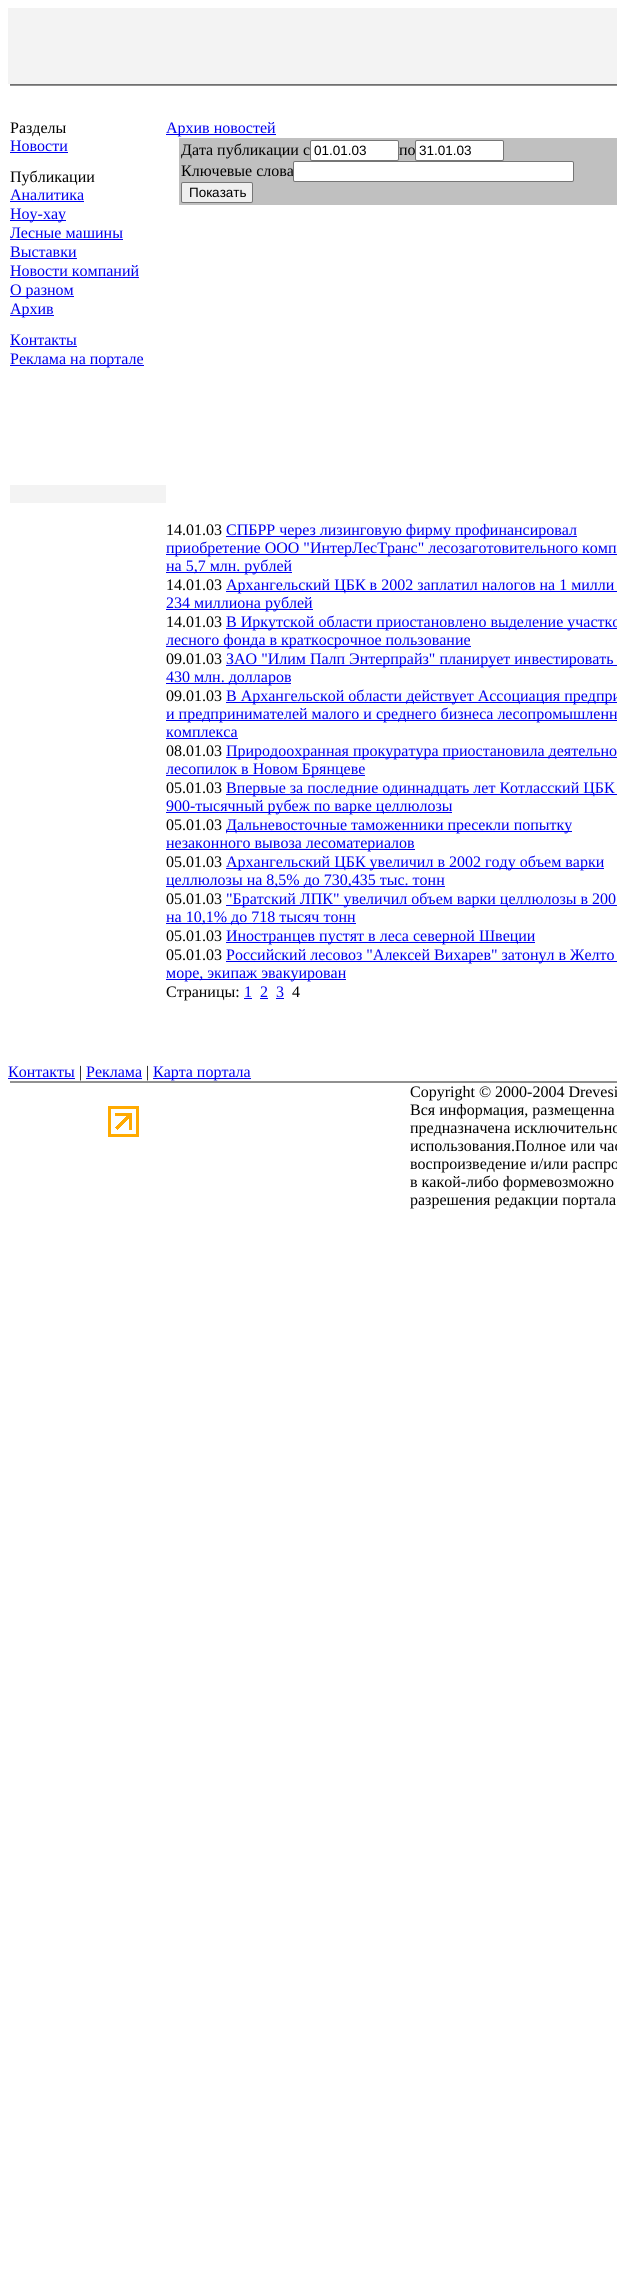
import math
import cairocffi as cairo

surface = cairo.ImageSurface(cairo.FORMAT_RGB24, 617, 2278)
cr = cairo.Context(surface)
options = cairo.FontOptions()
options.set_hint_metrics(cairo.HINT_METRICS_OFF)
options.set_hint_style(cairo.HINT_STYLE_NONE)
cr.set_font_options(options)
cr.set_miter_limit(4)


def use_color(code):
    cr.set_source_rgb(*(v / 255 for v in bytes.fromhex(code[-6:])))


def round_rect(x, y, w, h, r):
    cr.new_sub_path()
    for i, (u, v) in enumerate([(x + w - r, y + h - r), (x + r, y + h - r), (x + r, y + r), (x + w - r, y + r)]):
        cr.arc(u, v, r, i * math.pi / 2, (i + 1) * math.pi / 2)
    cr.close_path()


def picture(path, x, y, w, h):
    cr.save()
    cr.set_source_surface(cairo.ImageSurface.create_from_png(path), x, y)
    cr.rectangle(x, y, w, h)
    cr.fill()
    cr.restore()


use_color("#ffffff")
cr.paint()
use_color("#f3f3f3")
cr.rectangle(8, 8, 609, 76)
cr.fill()
use_color("#707070")
cr.rectangle(10, 84, 607, 1)
cr.fill()
use_color("#909090")
cr.rectangle(10, 85, 607, 1)
cr.fill()
cr.select_font_face("Liberation Serif")
cr.set_font_size(16)
use_color("#000000")
cr.move_to(10, 133)
cr.show_text("Разделы")
use_color("#0000ee")
cr.move_to(10, 151)
cr.show_text("Новости")
cr.rectangle(10, 152, 58, 1)
cr.fill()
use_color("#000000")
cr.move_to(10, 182)
cr.show_text("Публикации")
use_color("#0000ee")
cr.move_to(10, 200)
cr.show_text("Аналитика")
cr.rectangle(10, 201, 74, 1)
cr.fill()
cr.rectangle(10, 220, 56, 1)
cr.fill()
cr.move_to(10, 219)
cr.show_text("Ноу-хау")
cr.move_to(10, 238)
cr.show_text("Лесные машины")
cr.rectangle(10, 239, 113, 1)
cr.fill()
cr.move_to(10, 257)
cr.show_text("Выставки")
cr.rectangle(10, 258, 67, 1)
cr.fill()
cr.move_to(10, 276)
cr.show_text("Новости компаний")
cr.rectangle(10, 277, 129, 1)
cr.fill()
cr.rectangle(10, 296, 64, 1)
cr.fill()
cr.move_to(10, 295)
cr.show_text("О разном")
cr.rectangle(10, 315, 44, 1)
cr.fill()
cr.move_to(10, 314)
cr.show_text("Архив")
cr.move_to(10, 345)
cr.show_text("Контакты")
cr.rectangle(10, 346, 67, 1)
cr.fill()
cr.rectangle(10, 365, 134, 1)
cr.fill()
cr.move_to(10, 364)
cr.show_text("Реклама на портале")
use_color("#f3f3f3")
cr.rectangle(10, 485, 156, 18)
cr.fill()
use_color("#0000ee")
cr.rectangle(166, 134, 110, 1)
cr.fill()
cr.move_to(166, 133)
cr.show_text("Архив новостей")
use_color("#c0c0c0")
cr.rectangle(179, 138, 438, 67)
cr.fill()
use_color("#000000")
cr.move_to(181, 155)
cr.show_text("Дата публикации с")
use_color("#ffffff")
round_rect(310.5, 140.5, 88, 20, 1.5)
cr.fill_preserve()
use_color("#767676")
cr.set_line_width(1)
cr.stroke()
cr.select_font_face("Liberation Sans")
cr.set_font_size(13.5)
use_color("#000000")
cr.move_to(314, 155)
cr.show_text("01.01.03")
cr.select_font_face("Liberation Serif")
cr.set_font_size(16)
cr.move_to(399, 155)
cr.show_text("по")
use_color("#ffffff")
round_rect(415.5, 140.5, 88, 20, 1.5)
cr.fill_preserve()
use_color("#767676")
cr.stroke()
cr.select_font_face("Liberation Sans")
cr.set_font_size(13.5)
use_color("#000000")
cr.move_to(419, 155)
cr.show_text("31.01.03")
cr.select_font_face("Liberation Serif")
cr.set_font_size(16)
cr.move_to(181, 176)
cr.show_text("Ключевые слова")
use_color("#ffffff")
round_rect(293.5, 161.5, 280, 20, 1.5)
cr.fill_preserve()
use_color("#767676")
cr.stroke()
use_color("#efefef")
round_rect(181.5, 182.5, 71, 20, 1.5)
cr.fill_preserve()
use_color("#767676")
cr.stroke()
cr.select_font_face("Liberation Sans")
cr.set_font_size(13.5)
use_color("#000000")
cr.move_to(189, 197)
cr.show_text("Показать")
cr.select_font_face("Liberation Serif")
cr.set_font_size(16)
cr.move_to(166, 535)
cr.show_text("14.01.03")
use_color("#0000ee")
cr.rectangle(226, 536, 351, 1)
cr.fill()
cr.move_to(226, 535)
cr.show_text("СПБРР через лизинговую фирму профинансировал")
cr.rectangle(166, 554, 451, 1)
cr.fill()
cr.move_to(166, 553)
cr.show_text("приобретение ООО \"ИнтерЛесТранс\" лесозаготовительного комп")
cr.rectangle(166, 572, 126, 1)
cr.fill()
cr.move_to(166, 571)
cr.show_text("на 5,7 млн. рублей")
use_color("#000000")
cr.move_to(166, 590)
cr.show_text("14.01.03")
use_color("#0000ee")
cr.rectangle(226, 591, 391, 1)
cr.fill()
cr.move_to(226, 590)
cr.show_text("Архангельский ЦБК в 2002 заплатил налогов на 1 милли")
cr.rectangle(166, 609, 147, 1)
cr.fill()
cr.move_to(166, 608)
cr.show_text("234 миллиона рублей")
use_color("#000000")
cr.move_to(166, 627)
cr.show_text("14.01.03")
use_color("#0000ee")
cr.rectangle(226, 628, 391, 1)
cr.fill()
cr.move_to(226, 627)
cr.show_text("В Иркутской области приостановлено выделение участко")
cr.rectangle(166, 646, 305, 1)
cr.fill()
cr.move_to(166, 645)
cr.show_text("лесного фонда в краткосрочное пользование")
use_color("#000000")
cr.move_to(166, 664)
cr.show_text("09.01.03")
use_color("#0000ee")
cr.rectangle(226, 665, 391, 1)
cr.fill()
cr.move_to(226, 664)
cr.show_text("ЗАО \"Илим Палп Энтерпрайз\" планирует инвестировать")
cr.rectangle(166, 683, 125, 1)
cr.fill()
cr.move_to(166, 682)
cr.show_text("430 млн. долларов")
use_color("#000000")
cr.move_to(166, 701)
cr.show_text("09.01.03")
use_color("#0000ee")
cr.rectangle(226, 702, 391, 1)
cr.fill()
cr.move_to(226, 701)
cr.show_text("В Архангельской области действует Ассоциация предпри")
cr.rectangle(166, 720, 451, 1)
cr.fill()
cr.move_to(166, 719)
cr.show_text("и предпринимателей малого и среднего бизнеса лесопромышленн")
cr.move_to(166, 737)
cr.show_text("комплекса")
cr.rectangle(166, 738, 72, 1)
cr.fill()
use_color("#000000")
cr.move_to(166, 756)
cr.show_text("08.01.03")
use_color("#0000ee")
cr.rectangle(226, 757, 391, 1)
cr.fill()
cr.move_to(226, 756)
cr.show_text("Природоохранная прокуратура приостановила деятельно")
cr.rectangle(166, 775, 199, 1)
cr.fill()
cr.move_to(166, 774)
cr.show_text("лесопилок в Новом Брянцеве")
use_color("#000000")
cr.move_to(166, 793)
cr.show_text("05.01.03")
use_color("#0000ee")
cr.rectangle(226, 794, 391, 1)
cr.fill()
cr.move_to(226, 793)
cr.show_text("Впервые за последние одиннадцать лет Котласский ЦБК")
cr.rectangle(166, 812, 286, 1)
cr.fill()
cr.move_to(166, 811)
cr.show_text("900-тысячный рубеж по варке целлюлозы")
use_color("#000000")
cr.move_to(166, 830)
cr.show_text("05.01.03")
use_color("#0000ee")
cr.rectangle(226, 831, 346, 1)
cr.fill()
cr.move_to(226, 830)
cr.show_text("Дальневосточные таможенники пресекли попытку")
cr.rectangle(166, 849, 249, 1)
cr.fill()
cr.move_to(166, 848)
cr.show_text("незаконного вывоза лесоматериалов")
use_color("#000000")
cr.move_to(166, 867)
cr.show_text("05.01.03")
use_color("#0000ee")
cr.rectangle(226, 868, 378, 1)
cr.fill()
cr.move_to(226, 867)
cr.show_text("Архангельский ЦБК увеличил в 2002 году объем варки")
cr.rectangle(166, 886, 279, 1)
cr.fill()
cr.move_to(166, 885)
cr.show_text("целлюлозы на 8,5% до 730,435 тыс. тонн")
use_color("#000000")
cr.move_to(166, 904)
cr.show_text("05.01.03")
use_color("#0000ee")
cr.rectangle(226, 905, 391, 1)
cr.fill()
cr.move_to(226, 904)
cr.show_text("\"Братский ЛПК\" увеличил объем варки целлюлозы в 200")
cr.rectangle(166, 923, 190, 1)
cr.fill()
cr.move_to(166, 922)
cr.show_text("на 10,1% до 718 тысяч тонн")
use_color("#000000")
cr.move_to(166, 941)
cr.show_text("05.01.03")
use_color("#0000ee")
cr.rectangle(226, 942, 309, 1)
cr.fill()
cr.move_to(226, 941)
cr.show_text("Иностранцев пустят в леса северной Швеции")
use_color("#000000")
cr.move_to(166, 960)
cr.show_text("05.01.03")
use_color("#0000ee")
cr.rectangle(226, 961, 391, 1)
cr.fill()
cr.move_to(226, 960)
cr.show_text("Российский лесовоз \"Алексей Вихарев\" затонул в Желто")
cr.rectangle(166, 979, 180, 1)
cr.fill()
cr.move_to(166, 978)
cr.show_text("море, экипаж эвакуирован")
use_color("#000000")
cr.move_to(166, 997)
cr.show_text("Страницы:")
use_color("#0000ee")
cr.move_to(244, 997)
cr.show_text("1")
cr.rectangle(244, 998, 8, 1)
cr.fill()
cr.move_to(260, 997)
cr.show_text("2")
cr.rectangle(260, 998, 8, 1)
cr.fill()
cr.move_to(276, 997)
cr.show_text("3")
cr.rectangle(276, 998, 8, 1)
cr.fill()
use_color("#000000")
cr.move_to(292, 997)
cr.show_text("4")
use_color("#0000ee")
cr.move_to(8, 1077)
cr.show_text("Контакты")
cr.rectangle(8, 1078, 67, 1)
cr.fill()
use_color("#000000")
cr.move_to(79, 1077)
cr.show_text("|")
use_color("#0000ee")
cr.move_to(86, 1077)
cr.show_text("Реклама")
cr.rectangle(86, 1078, 56, 1)
cr.fill()
use_color("#000000")
cr.move_to(146, 1077)
cr.show_text("|")
use_color("#0000ee")
cr.rectangle(153, 1078, 98, 1)
cr.fill()
cr.move_to(153, 1077)
cr.show_text("Карта портала")
use_color("#909090")
cr.rectangle(10, 1081, 607, 2)
cr.fill()
picture("img1.png", 108, 1106, 31, 31)
use_color("#000000")
cr.move_to(410, 1097)
cr.show_text("Copyright © 2000-2004 Drevesi")
cr.move_to(410, 1115)
cr.show_text("Вся информация, размещенна")
cr.move_to(410, 1133)
cr.show_text("предназначена исключительно")
cr.move_to(410, 1151)
cr.show_text("использования.Полное или час")
cr.move_to(410, 1169)
cr.show_text("воспроизведение и/или распро")
cr.move_to(410, 1187)
cr.show_text("в какой-либо формевозможно")
cr.move_to(410, 1205)
cr.show_text("разрешения редакции портала")
surface.write_to_png("result.png")
